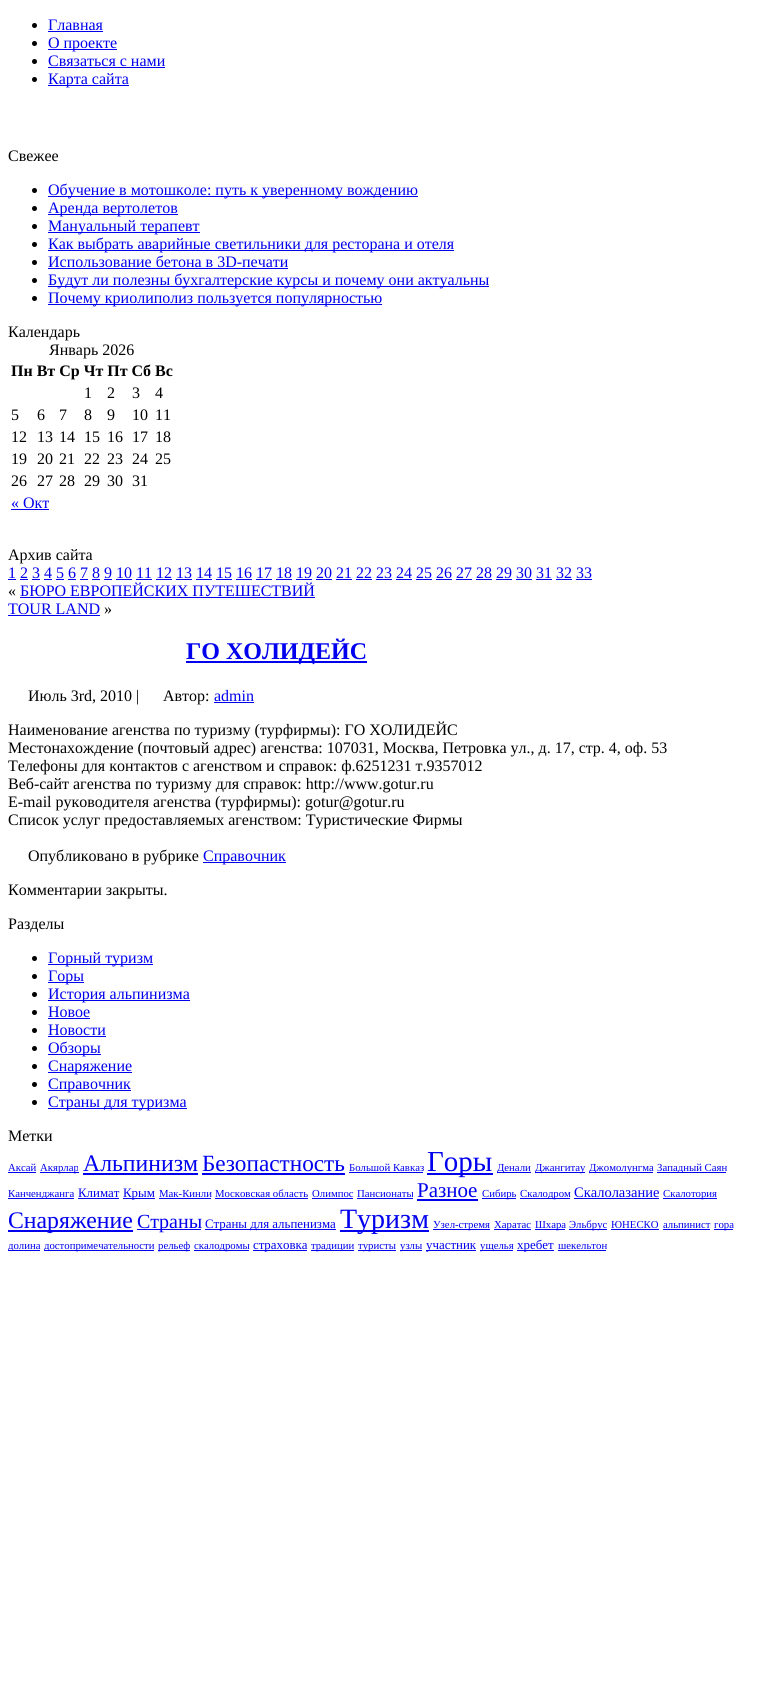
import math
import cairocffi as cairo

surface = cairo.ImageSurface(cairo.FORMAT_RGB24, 766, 1692)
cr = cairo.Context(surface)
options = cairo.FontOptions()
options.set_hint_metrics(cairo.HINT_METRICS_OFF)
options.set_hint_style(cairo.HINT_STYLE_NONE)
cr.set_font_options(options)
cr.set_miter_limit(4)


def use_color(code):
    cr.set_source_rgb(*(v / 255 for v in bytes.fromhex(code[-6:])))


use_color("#ffffff")
cr.paint()
use_color("#000000")
cr.arc(34.5, 25.5, 2.5, 0, 2 * math.pi)
cr.fill()
cr.select_font_face("Liberation Serif")
cr.set_font_size(16)
use_color("#0000ee")
cr.move_to(48, 30)
cr.show_text("Главная")
cr.rectangle(48, 31, 55, 1)
cr.fill()
use_color("#000000")
cr.arc(34.5, 43.5, 2.5, 0, 2 * math.pi)
cr.fill()
use_color("#0000ee")
cr.rectangle(48, 49, 69, 1)
cr.fill()
cr.move_to(48, 48)
cr.show_text("О проекте")
use_color("#000000")
cr.new_path()
cr.arc(34.5, 61.5, 2.5, 0, 2 * math.pi)
cr.fill()
use_color("#0000ee")
cr.move_to(48, 66)
cr.show_text("Связаться с нами")
cr.rectangle(48, 67, 117, 1)
cr.fill()
use_color("#000000")
cr.arc(34.5, 79.5, 2.5, 0, 2 * math.pi)
cr.fill()
use_color("#0000ee")
cr.rectangle(48, 85, 81, 1)
cr.fill()
cr.move_to(48, 84)
cr.show_text("Карта сайта")
use_color("#000000")
cr.move_to(8, 161)
cr.show_text("Свежее")
cr.new_path()
cr.arc(34.5, 190.5, 2.5, 0, 2 * math.pi)
cr.fill()
use_color("#0000ee")
cr.rectangle(48, 196, 370, 1)
cr.fill()
cr.move_to(48, 195)
cr.show_text("Обучение в мотошколе: путь к уверенному вождению")
use_color("#000000")
cr.new_path()
cr.arc(34.5, 208.5, 2.5, 0, 2 * math.pi)
cr.fill()
use_color("#0000ee")
cr.rectangle(48, 214, 130, 1)
cr.fill()
cr.move_to(48, 213)
cr.show_text("Аренда вертолетов")
use_color("#000000")
cr.new_path()
cr.arc(34.5, 226.5, 2.5, 0, 2 * math.pi)
cr.fill()
use_color("#0000ee")
cr.rectangle(48, 232, 152, 1)
cr.fill()
cr.move_to(48, 231)
cr.show_text("Мануальный терапевт")
use_color("#000000")
cr.new_path()
cr.arc(34.5, 244.5, 2.5, 0, 2 * math.pi)
cr.fill()
use_color("#0000ee")
cr.rectangle(48, 250, 406, 1)
cr.fill()
cr.move_to(48, 249)
cr.show_text("Как выбрать аварийные светильники для ресторана и отеля")
use_color("#000000")
cr.new_path()
cr.arc(34.5, 262.5, 2.5, 0, 2 * math.pi)
cr.fill()
use_color("#0000ee")
cr.move_to(48, 267)
cr.show_text("Использование бетона в 3D-печати")
cr.rectangle(48, 268, 240, 1)
cr.fill()
use_color("#000000")
cr.arc(34.5, 280.5, 2.5, 0, 2 * math.pi)
cr.fill()
use_color("#0000ee")
cr.rectangle(48, 286, 441, 1)
cr.fill()
cr.move_to(48, 285)
cr.show_text("Будут ли полезны бухгалтерские курсы и почему они актуальны")
use_color("#000000")
cr.new_path()
cr.arc(34.5, 298.5, 2.5, 0, 2 * math.pi)
cr.fill()
use_color("#0000ee")
cr.rectangle(48, 304, 334, 1)
cr.fill()
cr.move_to(48, 303)
cr.show_text("Почему криолиполиз пользуется популярностью")
use_color("#000000")
cr.move_to(8, 337)
cr.show_text("Календарь")
cr.move_to(49, 355)
cr.show_text("Январь 2026")
cr.select_font_face("Liberation Serif", cairo.FONT_SLANT_NORMAL, cairo.FONT_WEIGHT_BOLD)
cr.move_to(11, 376)
cr.show_text("Пн Вт Ср Чт Пт Сб Вс")
cr.select_font_face("Liberation Serif")
cr.move_to(84, 398)
cr.show_text("1")
cr.move_to(107, 398)
cr.show_text("2")
cr.move_to(132, 398)
cr.show_text("3")
cr.move_to(155, 398)
cr.show_text("4")
cr.move_to(11, 420)
cr.show_text("5")
cr.move_to(37, 420)
cr.show_text("6")
cr.move_to(59, 420)
cr.show_text("7")
cr.move_to(84, 420)
cr.show_text("8")
cr.move_to(107, 420)
cr.show_text("9")
cr.move_to(132, 420)
cr.show_text("10")
cr.move_to(155, 420)
cr.show_text("11")
cr.move_to(11, 442)
cr.show_text("12")
cr.move_to(37, 442)
cr.show_text("13")
cr.move_to(59, 442)
cr.show_text("14")
cr.move_to(84, 442)
cr.show_text("15")
cr.move_to(107, 442)
cr.show_text("16")
cr.move_to(132, 442)
cr.show_text("17")
cr.move_to(155, 442)
cr.show_text("18")
cr.move_to(11, 464)
cr.show_text("19")
cr.move_to(37, 464)
cr.show_text("20")
cr.move_to(59, 464)
cr.show_text("21")
cr.move_to(84, 464)
cr.show_text("22")
cr.move_to(107, 464)
cr.show_text("23")
cr.move_to(132, 464)
cr.show_text("24")
cr.move_to(155, 464)
cr.show_text("25")
cr.move_to(11, 486)
cr.show_text("26")
cr.move_to(37, 486)
cr.show_text("27")
cr.move_to(59, 486)
cr.show_text("28")
cr.move_to(84, 486)
cr.show_text("29")
cr.move_to(107, 486)
cr.show_text("30")
cr.move_to(132, 486)
cr.show_text("31")
use_color("#0000ee")
cr.move_to(11, 508)
cr.show_text("« Окт")
cr.rectangle(11, 509, 38, 1)
cr.fill()
use_color("#000000")
cr.move_to(8, 560)
cr.show_text("Архив сайта")
use_color("#0000ee")
cr.move_to(8, 578)
cr.show_text("1 2 3 4 5 6 7 8 9 10 11 12 13 14 15 16 17 18 19 20 21 22 23 24 25 26 27 28 29 30 31 32 33")
cr.rectangle(8, 579, 8, 1)
cr.fill()
cr.rectangle(20, 579, 8, 1)
cr.fill()
cr.rectangle(32, 579, 8, 1)
cr.fill()
cr.rectangle(44, 579, 8, 1)
cr.fill()
cr.rectangle(56, 579, 8, 1)
cr.fill()
cr.rectangle(68, 579, 8, 1)
cr.fill()
cr.rectangle(80, 579, 8, 1)
cr.fill()
cr.rectangle(92, 579, 8, 1)
cr.fill()
cr.rectangle(104, 579, 8, 1)
cr.fill()
cr.rectangle(116, 579, 16, 1)
cr.fill()
cr.rectangle(136, 579, 16, 1)
cr.fill()
cr.rectangle(156, 579, 16, 1)
cr.fill()
cr.rectangle(176, 579, 16, 1)
cr.fill()
cr.rectangle(196, 579, 16, 1)
cr.fill()
cr.rectangle(216, 579, 16, 1)
cr.fill()
cr.rectangle(236, 579, 16, 1)
cr.fill()
cr.rectangle(256, 579, 16, 1)
cr.fill()
cr.rectangle(276, 579, 16, 1)
cr.fill()
cr.rectangle(296, 579, 16, 1)
cr.fill()
cr.rectangle(316, 579, 16, 1)
cr.fill()
cr.rectangle(336, 579, 16, 1)
cr.fill()
cr.rectangle(356, 579, 16, 1)
cr.fill()
cr.rectangle(376, 579, 16, 1)
cr.fill()
cr.rectangle(396, 579, 16, 1)
cr.fill()
cr.rectangle(416, 579, 16, 1)
cr.fill()
cr.rectangle(436, 579, 16, 1)
cr.fill()
cr.rectangle(456, 579, 16, 1)
cr.fill()
cr.rectangle(476, 579, 16, 1)
cr.fill()
cr.rectangle(496, 579, 16, 1)
cr.fill()
cr.rectangle(516, 579, 16, 1)
cr.fill()
cr.rectangle(536, 579, 16, 1)
cr.fill()
cr.rectangle(556, 579, 16, 1)
cr.fill()
cr.rectangle(576, 579, 16, 1)
cr.fill()
use_color("#000000")
cr.move_to(8, 596)
cr.show_text("«")
use_color("#0000ee")
cr.move_to(20, 596)
cr.show_text("БЮРО ЕВРОПЕЙСКИХ ПУТЕШЕСТВИЙ")
cr.rectangle(20, 597, 295, 1)
cr.fill()
cr.move_to(8, 614)
cr.show_text("TOUR LAND")
cr.rectangle(8, 615, 92, 1)
cr.fill()
use_color("#000000")
cr.move_to(104, 614)
cr.show_text("»")
use_color("#0000ee")
cr.rectangle(186, 661, 181, 2)
cr.fill()
cr.select_font_face("Liberation Serif", cairo.FONT_SLANT_NORMAL, cairo.FONT_WEIGHT_BOLD)
cr.set_font_size(24)
cr.move_to(186, 659)
cr.show_text("ГО ХОЛИДЕЙС")
cr.select_font_face("Liberation Serif")
cr.set_font_size(16)
use_color("#000000")
cr.move_to(28, 701)
cr.show_text("Июль 3rd, 2010 |")
cr.move_to(163, 701)
cr.show_text("Автор:")
use_color("#0000ee")
cr.move_to(214, 701)
cr.show_text("admin")
cr.rectangle(214, 702, 40, 1)
cr.fill()
use_color("#000000")
cr.move_to(8, 735)
cr.show_text("Наименование агенства по туризму (турфирмы): ГО ХОЛИДЕЙС")
cr.move_to(8, 753)
cr.show_text("Местонахождение (почтовый адрес) агенства: 107031, Москва, Петровка ул., д. 17, стр. 4, оф. 53")
cr.move_to(8, 771)
cr.show_text("Телефоны для контактов с агенством и справок: ф.6251231 т.9357012")
cr.move_to(8, 789)
cr.show_text("Веб-сайт агенства по туризму для справок: http://www.gotur.ru")
cr.move_to(8, 807)
cr.show_text("E-mail руководителя агенства (турфирмы): gotur@gotur.ru")
cr.move_to(8, 825)
cr.show_text("Список услуг предоставляемых агенством: Туристические Фирмы")
cr.move_to(28, 861)
cr.show_text("Опубликовано в рубрике")
use_color("#0000ee")
cr.rectangle(203, 862, 83, 1)
cr.fill()
cr.move_to(203, 861)
cr.show_text("Справочник")
use_color("#000000")
cr.move_to(8, 895)
cr.show_text("Комментарии закрыты.")
cr.move_to(8, 929)
cr.show_text("Разделы")
cr.new_path()
cr.arc(34.5, 958.5, 2.5, 0, 2 * math.pi)
cr.fill()
use_color("#0000ee")
cr.rectangle(48, 964, 105, 1)
cr.fill()
cr.move_to(48, 963)
cr.show_text("Горный туризм")
use_color("#000000")
cr.new_path()
cr.arc(34.5, 976.5, 2.5, 0, 2 * math.pi)
cr.fill()
use_color("#0000ee")
cr.rectangle(48, 982, 36, 1)
cr.fill()
cr.move_to(48, 981)
cr.show_text("Горы")
use_color("#000000")
cr.new_path()
cr.arc(34.5, 994.5, 2.5, 0, 2 * math.pi)
cr.fill()
use_color("#0000ee")
cr.rectangle(48, 1000, 142, 1)
cr.fill()
cr.move_to(48, 999)
cr.show_text("История альпинизма")
use_color("#000000")
cr.new_path()
cr.arc(34.5, 1012.5, 2.5, 0, 2 * math.pi)
cr.fill()
use_color("#0000ee")
cr.move_to(48, 1017)
cr.show_text("Новое")
cr.rectangle(48, 1018, 42, 1)
cr.fill()
use_color("#000000")
cr.arc(34.5, 1030.5, 2.5, 0, 2 * math.pi)
cr.fill()
use_color("#0000ee")
cr.move_to(48, 1035)
cr.show_text("Новости")
cr.rectangle(48, 1036, 58, 1)
cr.fill()
use_color("#000000")
cr.arc(34.5, 1048.5, 2.5, 0, 2 * math.pi)
cr.fill()
use_color("#0000ee")
cr.rectangle(48, 1054, 53, 1)
cr.fill()
cr.move_to(48, 1053)
cr.show_text("Обзоры")
use_color("#000000")
cr.new_path()
cr.arc(34.5, 1066.5, 2.5, 0, 2 * math.pi)
cr.fill()
use_color("#0000ee")
cr.rectangle(48, 1072, 84, 1)
cr.fill()
cr.move_to(48, 1071)
cr.show_text("Снаряжение")
use_color("#000000")
cr.new_path()
cr.arc(34.5, 1084.5, 2.5, 0, 2 * math.pi)
cr.fill()
use_color("#0000ee")
cr.rectangle(48, 1090, 83, 1)
cr.fill()
cr.move_to(48, 1089)
cr.show_text("Справочник")
use_color("#000000")
cr.new_path()
cr.arc(34.5, 1102.5, 2.5, 0, 2 * math.pi)
cr.fill()
use_color("#0000ee")
cr.rectangle(48, 1108, 139, 1)
cr.fill()
cr.move_to(48, 1107)
cr.show_text("Страны для туризма")
use_color("#000000")
cr.move_to(8, 1141)
cr.show_text("Метки")
cr.set_font_size(10.75)
use_color("#0000ee")
cr.move_to(8, 1171)
cr.show_text("Аксай")
cr.rectangle(8, 1172, 28, 1)
cr.fill()
cr.rectangle(40, 1172, 39, 1)
cr.fill()
cr.move_to(40, 1171)
cr.show_text("Акярлар")
cr.set_font_size(23.75)
cr.move_to(83, 1171)
cr.show_text("Альпинизм")
cr.rectangle(83, 1173, 115, 2)
cr.fill()
cr.set_font_size(23.25)
cr.move_to(202, 1171)
cr.show_text("Безопастность")
cr.rectangle(202, 1173, 143, 2)
cr.fill()
cr.set_font_size(10.75)
cr.move_to(349, 1171)
cr.show_text("Большой Кавказ")
cr.rectangle(349, 1172, 74, 1)
cr.fill()
cr.rectangle(427, 1173, 66, 2)
cr.fill()
cr.set_font_size(29)
cr.move_to(427, 1171)
cr.show_text("Горы")
cr.rectangle(497, 1172, 34, 1)
cr.fill()
cr.set_font_size(10.75)
cr.move_to(497, 1171)
cr.show_text("Денали")
cr.rectangle(535, 1172, 50, 1)
cr.fill()
cr.move_to(535, 1171)
cr.show_text("Джангитау")
cr.rectangle(589, 1172, 64, 1)
cr.fill()
cr.move_to(589, 1171)
cr.show_text("Джомолунгма")
cr.rectangle(657, 1172, 69, 1)
cr.fill()
cr.move_to(657, 1171)
cr.show_text("Западный Саян")
cr.rectangle(8, 1198, 66, 1)
cr.fill()
cr.move_to(8, 1197)
cr.show_text("Канченджанга")
cr.set_font_size(12.9)
cr.move_to(78, 1197)
cr.show_text("Климат")
cr.rectangle(78, 1198, 41, 1)
cr.fill()
cr.rectangle(123, 1198, 32, 1)
cr.fill()
cr.move_to(123, 1197)
cr.show_text("Крым")
cr.set_font_size(10.75)
cr.move_to(159, 1197)
cr.show_text("Мак-Кинли")
cr.rectangle(159, 1198, 52, 1)
cr.fill()
cr.move_to(215, 1197)
cr.show_text("Московская область")
cr.rectangle(215, 1198, 93, 1)
cr.fill()
cr.move_to(312, 1197)
cr.show_text("Олимпос")
cr.rectangle(312, 1198, 41, 1)
cr.fill()
cr.move_to(357, 1197)
cr.show_text("Пансионаты")
cr.rectangle(357, 1198, 56, 1)
cr.fill()
cr.set_font_size(21)
cr.move_to(417, 1197)
cr.show_text("Разное")
cr.rectangle(417, 1199, 61, 2)
cr.fill()
cr.rectangle(482, 1198, 34, 1)
cr.fill()
cr.set_font_size(10.75)
cr.move_to(482, 1197)
cr.show_text("Сибирь")
cr.rectangle(520, 1198, 50, 1)
cr.fill()
cr.move_to(520, 1197)
cr.show_text("Скалодром")
cr.set_font_size(14.5)
cr.move_to(574, 1197)
cr.show_text("Скалолазание")
cr.rectangle(574, 1198, 85, 1)
cr.fill()
cr.rectangle(663, 1198, 54, 1)
cr.fill()
cr.set_font_size(10.75)
cr.move_to(663, 1197)
cr.show_text("Скалотория")
cr.rectangle(8, 1230, 125, 2)
cr.fill()
cr.set_font_size(23.75)
cr.move_to(8, 1228)
cr.show_text("Снаряжение")
cr.rectangle(137, 1229, 64, 1)
cr.fill()
cr.set_font_size(20)
cr.move_to(137, 1228)
cr.show_text("Страны")
cr.rectangle(205, 1229, 131, 1)
cr.fill()
cr.set_font_size(12.9)
cr.move_to(205, 1228)
cr.show_text("Страны для альпенизма")
cr.rectangle(340, 1230, 89, 2)
cr.fill()
cr.set_font_size(28)
cr.move_to(340, 1228)
cr.show_text("Туризм")
cr.rectangle(433, 1229, 57, 1)
cr.fill()
cr.set_font_size(10.75)
cr.move_to(433, 1228)
cr.show_text("Узел-стремя")
cr.rectangle(494, 1229, 37, 1)
cr.fill()
cr.move_to(494, 1228)
cr.show_text("Харатас")
cr.rectangle(535, 1229, 30, 1)
cr.fill()
cr.move_to(535, 1228)
cr.show_text("Шхара")
cr.rectangle(569, 1229, 38, 1)
cr.fill()
cr.move_to(569, 1228)
cr.show_text("Эльбрус")
cr.move_to(611, 1228)
cr.show_text("ЮНЕСКО")
cr.rectangle(611, 1229, 48, 1)
cr.fill()
cr.move_to(663, 1228)
cr.show_text("альпинист")
cr.rectangle(663, 1229, 47, 1)
cr.fill()
cr.rectangle(714, 1229, 19, 1)
cr.fill()
cr.move_to(714, 1228)
cr.show_text("гора")
cr.rectangle(8, 1250, 32, 1)
cr.fill()
cr.move_to(8, 1249)
cr.show_text("долина")
cr.rectangle(44, 1250, 110, 1)
cr.fill()
cr.move_to(44, 1249)
cr.show_text("достопримечательности")
cr.rectangle(158, 1250, 32, 1)
cr.fill()
cr.move_to(158, 1249)
cr.show_text("рельеф")
cr.rectangle(194, 1250, 55, 1)
cr.fill()
cr.move_to(194, 1249)
cr.show_text("скалодромы")
cr.rectangle(253, 1250, 54, 1)
cr.fill()
cr.set_font_size(12.9)
cr.move_to(253, 1249)
cr.show_text("страховка")
cr.rectangle(311, 1250, 43, 1)
cr.fill()
cr.set_font_size(10.75)
cr.move_to(311, 1249)
cr.show_text("традиции")
cr.rectangle(358, 1250, 38, 1)
cr.fill()
cr.move_to(358, 1249)
cr.show_text("туристы")
cr.rectangle(400, 1250, 22, 1)
cr.fill()
cr.move_to(400, 1249)
cr.show_text("узлы")
cr.rectangle(426, 1250, 50, 1)
cr.fill()
cr.set_font_size(12.9)
cr.move_to(426, 1249)
cr.show_text("участник")
cr.rectangle(480, 1250, 33, 1)
cr.fill()
cr.set_font_size(10.75)
cr.move_to(480, 1249)
cr.show_text("ущелья")
cr.rectangle(517, 1250, 37, 1)
cr.fill()
cr.set_font_size(12.9)
cr.move_to(517, 1249)
cr.show_text("хребет")
cr.set_font_size(10.75)
cr.move_to(558, 1249)
cr.show_text("шекельтон")
cr.rectangle(558, 1250, 48, 1)
cr.fill()
surface.write_to_png("result.png")
